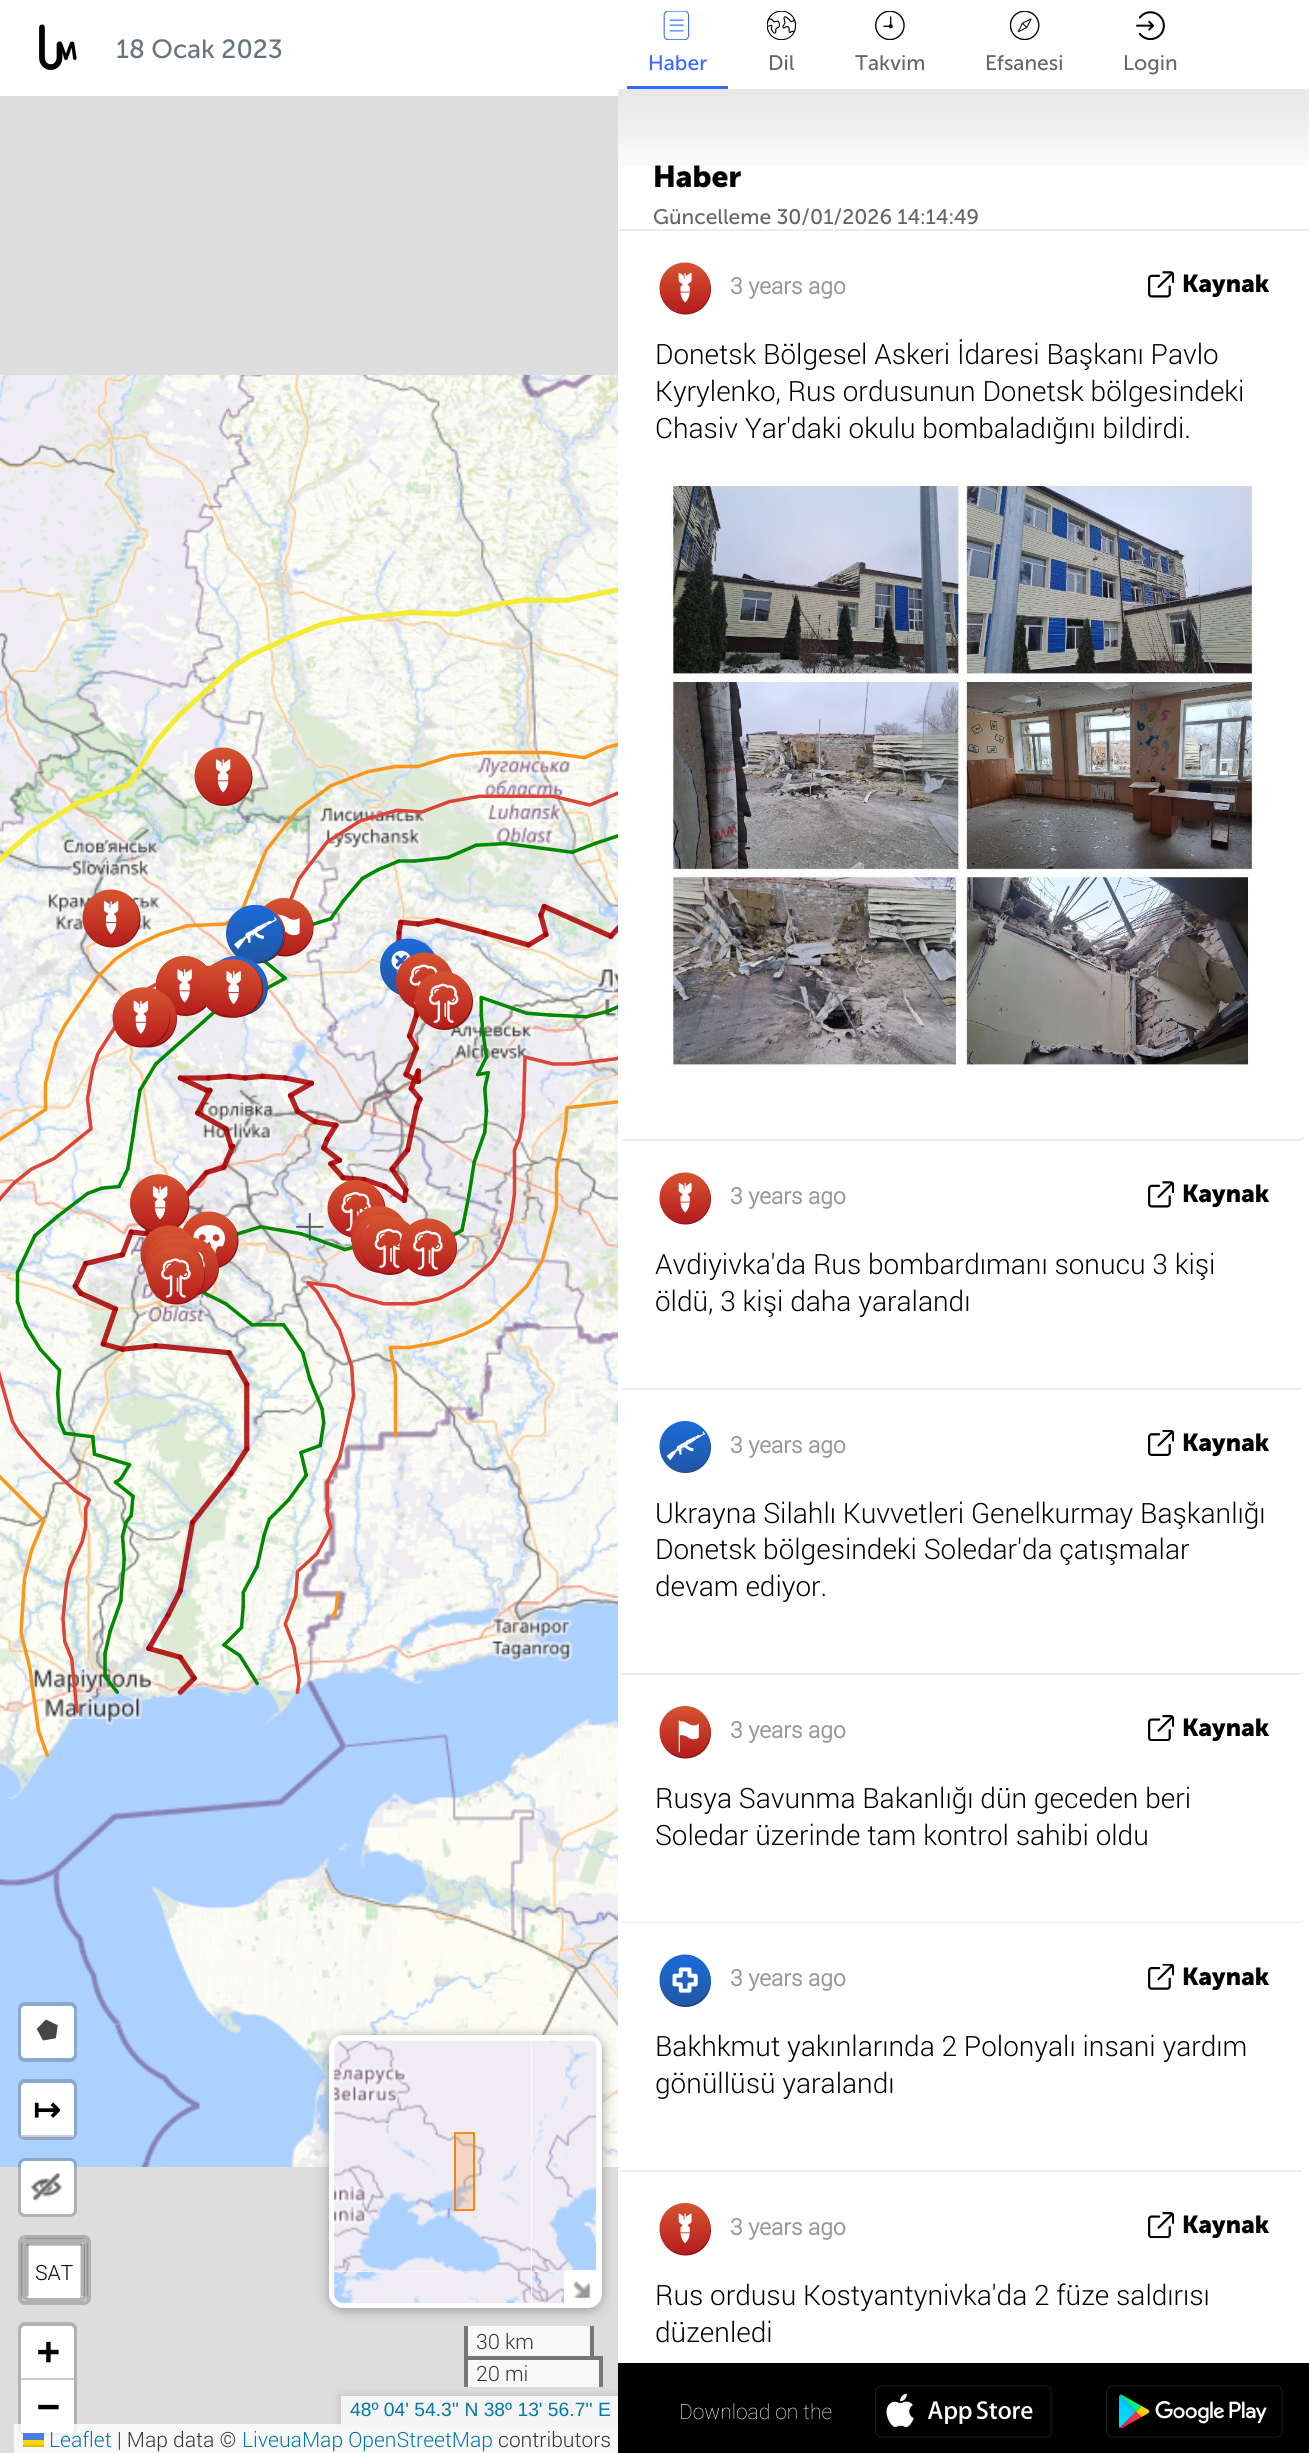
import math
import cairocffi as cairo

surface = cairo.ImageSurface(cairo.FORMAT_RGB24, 1309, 2453)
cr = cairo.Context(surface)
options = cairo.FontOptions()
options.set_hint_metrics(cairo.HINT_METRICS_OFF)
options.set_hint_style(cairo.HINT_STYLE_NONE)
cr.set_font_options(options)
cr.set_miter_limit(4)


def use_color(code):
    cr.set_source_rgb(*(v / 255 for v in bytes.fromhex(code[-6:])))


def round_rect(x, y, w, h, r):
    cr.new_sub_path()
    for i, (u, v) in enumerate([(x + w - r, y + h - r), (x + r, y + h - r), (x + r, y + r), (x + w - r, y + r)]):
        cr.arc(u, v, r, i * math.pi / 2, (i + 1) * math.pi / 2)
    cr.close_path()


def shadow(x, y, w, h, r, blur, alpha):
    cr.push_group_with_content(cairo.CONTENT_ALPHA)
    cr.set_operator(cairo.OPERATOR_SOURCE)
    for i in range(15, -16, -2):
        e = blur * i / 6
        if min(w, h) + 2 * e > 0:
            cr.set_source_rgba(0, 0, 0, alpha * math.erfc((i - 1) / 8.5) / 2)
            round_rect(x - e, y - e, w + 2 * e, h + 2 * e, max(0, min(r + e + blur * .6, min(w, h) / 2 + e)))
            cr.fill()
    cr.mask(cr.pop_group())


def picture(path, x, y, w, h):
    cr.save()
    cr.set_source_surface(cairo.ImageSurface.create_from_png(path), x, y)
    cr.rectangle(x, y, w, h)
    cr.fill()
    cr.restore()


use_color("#dddddd")
cr.paint()
use_color("#ffffff")
cr.rectangle(0, 0, 618, 96)
cr.fill()
picture("img1.png", 39, 24, 38, 46)
cr.select_font_face("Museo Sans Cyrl")
cr.set_font_size(26.25)
use_color("#66757f")
cr.move_to(116, 58)
cr.show_text("18 Ocak 2023")
use_color("#f8f8f8")
cr.rectangle(468, 2360, 131, 27)
cr.fill()
picture("img2.png", 0, 375, 226, 448)
picture("img3.png", 226, 375, 392, 448)
picture("img4.png", 0, 823, 226, 448)
picture("img5.png", 226, 823, 392, 448)
picture("img6.png", 0, 1271, 226, 448)
picture("img7.png", 226, 1271, 392, 448)
picture("img8.png", 0, 1719, 226, 448)
picture("img9.png", 226, 1719, 392, 448)
picture("img11.png", 296, 1213, 28, 28)
picture("img10.png", 0, 587, 618, 1170)
picture("img12.png", 194, 747, 59, 59)
picture("img13.png", 82, 889, 59, 59)
picture("img15.png", 264, 898, 50, 59)
picture("img16.png", 236, 905, 50, 59)
picture("img14.png", 226, 905, 58, 59)
picture("img17.png", 380, 938, 55, 57)
picture("img18.png", 156, 956, 53, 34)
picture("img19.png", 396, 952, 57, 58)
picture("img20.png", 156, 956, 53, 34)
picture("img21.png", 218, 956, 38, 8)
picture("img23.png", 227, 958, 41, 58)
picture("img27.png", 156, 967, 52, 49)
picture("img28.png", 228, 959, 35, 59)
picture("img22.png", 200, 959, 34, 59)
picture("img24.png", 204, 959, 48, 59)
picture("img25.png", 210, 959, 53, 59)
picture("img30.png", 141, 987, 33, 19)
picture("img26.png", 115, 987, 41, 19)
picture("img29.png", 415, 971, 58, 59)
picture("img31.png", 137, 990, 40, 58)
picture("img32.png", 112, 991, 58, 57)
picture("img33.png", 130, 1174, 47, 58)
picture("img34.png", 134, 1174, 56, 58)
picture("img35.png", 327, 1180, 59, 58)
picture("img36.png", 182, 1211, 57, 58)
picture("img37.png", 350, 1206, 55, 41)
picture("img38.png", 352, 1215, 39, 58)
picture("img39.png", 140, 1225, 52, 46)
picture("img40.png", 361, 1217, 49, 58)
picture("img41.png", 399, 1218, 58, 59)
picture("img42.png", 146, 1233, 26, 30)
picture("img43.png", 164, 1233, 32, 6)
picture("img44.png", 148, 1236, 42, 20)
picture("img45.png", 148, 1236, 45, 21)
picture("img46.png", 155, 1237, 41, 10)
picture("img47.png", 178, 1237, 41, 59)
picture("img48.png", 145, 1240, 59, 42)
picture("img49.png", 147, 1247, 58, 58)
round_rect(20, 2004, 55, 56, 5)
use_color("#8aa7cc")
cr.set_line_width(4)
cr.stroke()
use_color("#ffffff")
round_rect(21, 2006, 53, 52, 4)
cr.fill()
picture("img50.png", 36, 2019, 22, 22)
round_rect(20, 2081, 55, 57, 5)
use_color("#8aa7cc")
cr.stroke()
use_color("#ffffff")
cr.new_path()
cr.move_to(25, 2083)
cr.line_to(70, 2083)
cr.curve_to(72, 2083, 74, 2085, 74, 2087)
cr.line_to(74, 2137)
cr.line_to(21, 2137)
cr.line_to(21, 2087)
cr.curve_to(21, 2085, 23, 2083, 25, 2083)
cr.close_path()
cr.fill()
use_color("#cccccc")
cr.rectangle(21, 2135, 53, 2)
cr.fill()
cr.select_font_face("DejaVu Sans", cairo.FONT_SLANT_NORMAL, cairo.FONT_WEIGHT_BOLD)
cr.set_font_size(33)
use_color("#000000")
cr.move_to(33, 2121)
cr.show_text("↦")
round_rect(20, 2160, 55, 55, 5)
cr.set_source_rgba(0, 0, 0, 0.2)
cr.stroke()
use_color("#ffffff")
round_rect(21, 2161, 53, 53, 4)
cr.fill()
picture("img51.png", 31, 2173, 31, 28)
round_rect(20, 2237, 69, 66, 5)
use_color("#b1b1b1")
cr.stroke()
round_rect(23, 2240, 63, 59, 5)
cr.set_source_rgba(0, 0, 0, 0.2)
cr.stroke()
use_color("#ffffff")
cr.new_path()
cr.move_to(28, 2245)
cr.line_to(80, 2245)
cr.line_to(80, 2298)
cr.line_to(28, 2298)
cr.line_to(28, 2294)
cr.close_path()
cr.fill()
cr.set_source_rgba(0, 0, 0, 0.2)
cr.rectangle(26, 2242, 56, 4)
cr.fill()
cr.rectangle(81, 2244, 4, 52)
cr.fill()
cr.rectangle(25, 2244, 4, 52)
cr.fill()
cr.select_font_face("Roboto Light")
cr.set_font_size(21)
use_color("#000000")
cr.move_to(35, 2280)
cr.show_text("SAT")
round_rect(20, 2324, 55, 110, 5)
use_color("#b1b1b1")
cr.stroke()
use_color("#ffffff")
cr.new_path()
cr.move_to(25, 2326)
cr.line_to(70, 2326)
cr.curve_to(72, 2326, 74, 2328, 74, 2330)
cr.line_to(74, 2380)
cr.line_to(21, 2380)
cr.line_to(21, 2330)
cr.curve_to(21, 2328, 23, 2326, 25, 2326)
cr.close_path()
cr.fill()
use_color("#cccccc")
cr.rectangle(21, 2378, 53, 2)
cr.fill()
cr.select_font_face("DejaVu Sans Mono", cairo.FONT_SLANT_NORMAL, cairo.FONT_WEIGHT_BOLD)
cr.set_font_size(38)
use_color("#000000")
cr.move_to(37, 2364)
cr.show_text("+")
use_color("#ffffff")
cr.new_path()
cr.move_to(21, 2380)
cr.line_to(74, 2380)
cr.line_to(74, 2429)
cr.curve_to(74, 2431, 72, 2433, 70, 2433)
cr.line_to(25, 2433)
cr.curve_to(23, 2433, 21, 2431, 21, 2429)
cr.close_path()
cr.fill()
use_color("#000000")
cr.move_to(37, 2419)
cr.show_text("−")
use_color("#999999")
shadow(329, 2037, 273, 273, 14, 6, 1)
use_color("#f8f8f9")
round_rect(331.5, 2037.5, 268, 268, 11.5)
cr.fill_preserve()
use_color("#ffffff")
cr.set_line_width(5)
cr.stroke()
picture("img52.png", 334, 2041, 197, 232)
picture("img53.png", 532, 2041, 64, 231)
picture("img54.png", 334, 2272, 197, 31)
picture("img55.png", 532, 2272, 64, 31)
cr.set_source_rgba(1, 0.471, 0, 0.2)
cr.rectangle(455, 2133, 19, 77)
cr.fill()
cr.new_path()
cr.move_to(455, 2210)
cr.line_to(455, 2133)
cr.line_to(474, 2133)
cr.line_to(474, 2210)
cr.close_path()
use_color("#ff7800")
cr.set_line_width(1.8)
cr.set_line_cap(cairo.LINE_CAP_ROUND)
cr.set_line_join(cairo.LINE_JOIN_ROUND)
cr.stroke()
use_color("#ffffff")
cr.new_path()
cr.move_to(568, 2270)
cr.line_to(597, 2270)
cr.line_to(597, 2294)
cr.curve_to(597, 2299, 593, 2303, 588, 2303)
cr.line_to(564, 2303)
cr.line_to(564, 2274)
cr.curve_to(564, 2272, 566, 2270, 568, 2270)
cr.close_path()
cr.fill()
picture("img56.png", 573, 2281, 18, 18)
use_color("#f8f8f8")
cr.rectangle(468, 2326, 122, 30)
cr.fill()
use_color("#777777")
cr.rectangle(590, 2326, 4, 33)
cr.fill()
cr.rectangle(464, 2326, 4, 33)
cr.fill()
cr.select_font_face("Roboto Light")
cr.set_font_size(21)
use_color("#333333")
cr.move_to(476, 2349)
cr.show_text("30 km")
use_color("#777777")
cr.rectangle(464, 2356, 138, 4)
cr.fill()
cr.rectangle(599, 2356, 4, 31)
cr.fill()
cr.rectangle(464, 2356, 4, 31)
cr.fill()
use_color("#333333")
cr.move_to(476, 2381)
cr.show_text("20 mi")
cr.save()
cr.set_fill_rule(cairo.FILL_RULE_EVEN_ODD)
cr.new_path()
cr.move_to(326, 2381)
cr.line_to(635, 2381)
cr.line_to(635, 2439)
cr.line_to(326, 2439)
cr.close_path()
cr.move_to(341, 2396)
cr.line_to(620, 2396)
cr.line_to(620, 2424)
cr.line_to(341, 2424)
cr.close_path()
cr.clip()
use_color("#bbbbbb")
shadow(341, 2396, 279, 28, 0, 4.5, 1)
cr.restore()
cr.set_source_rgba(1, 1, 1, 0.7)
cr.rectangle(341, 2396, 277, 28)
cr.fill()
cr.select_font_face("Liberation Sans")
cr.set_font_size(19.25)
use_color("#0078a8")
cr.move_to(350, 2416)
cr.show_text("48º 04' 54.3'' N 38º 13' 56.7'' E")
cr.set_source_rgba(1, 1, 1, 0.8)
cr.rectangle(14, 2424, 604, 29)
cr.fill()
cr.select_font_face("Roboto Light")
cr.set_font_size(21)
use_color("#0078a8")
cr.move_to(49, 2447)
cr.show_text("Leaflet")
use_color("#4c7be1")
cr.rectangle(23, 2433, 21, 7)
cr.fill()
use_color("#ffd500")
cr.rectangle(23, 2440, 21, 5)
cr.fill()
use_color("#e0bc00")
cr.rectangle(23, 2445, 21, 2)
cr.fill()
use_color("#333333")
cr.move_to(117, 2447)
cr.show_text("| Map data ©")
use_color("#0078a8")
cr.move_to(242, 2447)
cr.show_text("LiveuaMap OpenStreetMap")
use_color("#333333")
cr.move_to(498, 2447)
cr.show_text("contributors")
use_color("#ffffff")
cr.rectangle(618, 0, 691, 2363)
cr.fill()
use_color("#346afe")
cr.rectangle(627, 86, 101, 3)
cr.fill()
picture("img57.png", 663, 11, 27, 29)
cr.select_font_face("Museo Sans Cyrl")
cr.move_to(648, 70)
cr.show_text("Haber")
picture("img58.png", 767, 11, 29, 29)
use_color("#666666")
cr.move_to(768, 70)
cr.show_text("Dil")
picture("img59.png", 875, 11, 30, 29)
cr.move_to(855, 70)
cr.show_text("Takvim")
picture("img60.png", 1010, 11, 30, 29)
cr.move_to(985, 70)
cr.show_text("Efsanesi")
picture("img61.png", 1136, 11, 29, 29)
cr.move_to(1123, 70)
cr.show_text("Login")
picture("img62.png", 618, 89, 691, 77)
use_color("#ededed")
cr.rectangle(618, 229, 691, 2)
cr.fill()
cr.select_font_face("Museo Sans Cyrl", cairo.FONT_SLANT_NORMAL, cairo.FONT_WEIGHT_BOLD)
cr.set_font_size(30)
use_color("#000000")
cr.move_to(653, 187)
cr.show_text("Haber")
cr.select_font_face("Museo Sans Cyrl")
cr.set_font_size(21)
use_color("#666666")
cr.move_to(653, 224)
cr.show_text("Güncelleme 30/01/2026 14:14:49")
use_color("#ececec")
cr.new_path()
cr.move_to(623, 1141)
cr.line_to(1298, 1141)
cr.curve_to(1300, 1141, 1304, 1140, 1304, 1137)
cr.curve_to(1303, 1138, 1300, 1139, 1298, 1139)
cr.line_to(624, 1139)
cr.line_to(620, 1140)
cr.close_path()
cr.fill()
picture("img63.png", 659, 262, 52, 53)
cr.select_font_face("Roboto", cairo.FONT_SLANT_NORMAL, cairo.FONT_WEIGHT_BOLD)
cr.set_font_size(22.75)
use_color("#999999")
cr.move_to(730, 294)
cr.show_text("3 years ago")
picture("img64.png", 1148, 271, 26, 27)
cr.select_font_face("Museo Sans Cyrl", cairo.FONT_SLANT_NORMAL, cairo.FONT_WEIGHT_BOLD)
cr.set_font_size(24.5)
use_color("#000000")
cr.move_to(1182, 292)
cr.show_text("Kaynak")
cr.select_font_face("Roboto Light")
cr.set_font_size(28)
cr.move_to(655, 364)
cr.show_text("Donetsk Bölgesel Askeri İdaresi Başkanı Pavlo")
cr.move_to(655, 401)
cr.show_text("Kyrylenko, Rus ordusunun Donetsk bölgesindeki")
cr.move_to(655, 438)
cr.show_text("Chasiv Yar'daki okulu bombaladığını bildirdi.")
picture("img65.png", 665, 478, 590, 590)
use_color("#ececec")
cr.new_path()
cr.move_to(621, 1390)
cr.line_to(620, 1389)
cr.line_to(623, 1388)
cr.line_to(1298, 1388)
cr.curve_to(1300, 1388, 1303, 1387, 1304, 1385)
cr.curve_to(1304, 1386, 1302, 1389, 1300, 1390)
cr.close_path()
cr.fill()
picture("img63.png", 659, 1172, 52, 53)
cr.select_font_face("Roboto", cairo.FONT_SLANT_NORMAL, cairo.FONT_WEIGHT_BOLD)
cr.set_font_size(22.75)
use_color("#999999")
cr.move_to(730, 1204)
cr.show_text("3 years ago")
picture("img64.png", 1148, 1181, 26, 27)
cr.select_font_face("Museo Sans Cyrl", cairo.FONT_SLANT_NORMAL, cairo.FONT_WEIGHT_BOLD)
cr.set_font_size(24.5)
use_color("#000000")
cr.move_to(1182, 1202)
cr.show_text("Kaynak")
cr.select_font_face("Roboto Light")
cr.set_font_size(28)
cr.move_to(655, 1274)
cr.show_text("Avdiyivka'da Rus bombardımanı sonucu 3 kişi")
cr.move_to(655, 1311)
cr.show_text("öldü, 3 kişi daha yaralandı")
use_color("#ececec")
cr.new_path()
cr.move_to(620, 1674)
cr.line_to(623, 1673)
cr.line_to(1298, 1673)
cr.curve_to(1300, 1673, 1303, 1672, 1304, 1671)
cr.curve_to(1304, 1672, 1301, 1675, 1300, 1675)
cr.line_to(622, 1675)
cr.close_path()
cr.fill()
picture("img66.png", 659, 1421, 52, 52)
cr.select_font_face("Roboto", cairo.FONT_SLANT_NORMAL, cairo.FONT_WEIGHT_BOLD)
cr.set_font_size(22.75)
use_color("#999999")
cr.move_to(730, 1453)
cr.show_text("3 years ago")
picture("img67.png", 1148, 1430, 26, 26)
cr.select_font_face("Museo Sans Cyrl", cairo.FONT_SLANT_NORMAL, cairo.FONT_WEIGHT_BOLD)
cr.set_font_size(24.5)
use_color("#000000")
cr.move_to(1182, 1451)
cr.show_text("Kaynak")
cr.select_font_face("Roboto Light")
cr.set_font_size(28)
cr.move_to(655, 1523)
cr.show_text("Ukrayna Silahlı Kuvvetleri Genelkurmay Başkanlığı")
cr.move_to(655, 1559)
cr.show_text("Donetsk bölgesindeki Soledar'da çatışmalar")
cr.move_to(655, 1596)
cr.show_text("devam ediyor.")
use_color("#ececec")
cr.new_path()
cr.move_to(1304, 1919)
cr.curve_to(1303, 1922, 1300, 1923, 1298, 1923)
cr.line_to(623, 1923)
cr.line_to(620, 1922)
cr.line_to(623, 1922)
cr.line_to(1298, 1922)
cr.curve_to(1300, 1922, 1303, 1921, 1304, 1919)
cr.close_path()
cr.fill()
picture("img68.png", 659, 1706, 52, 53)
cr.select_font_face("Roboto", cairo.FONT_SLANT_NORMAL, cairo.FONT_WEIGHT_BOLD)
cr.set_font_size(22.75)
use_color("#999999")
cr.move_to(730, 1738)
cr.show_text("3 years ago")
picture("img69.png", 1148, 1715, 26, 26)
cr.select_font_face("Museo Sans Cyrl", cairo.FONT_SLANT_NORMAL, cairo.FONT_WEIGHT_BOLD)
cr.set_font_size(24.5)
use_color("#000000")
cr.move_to(1182, 1736)
cr.show_text("Kaynak")
cr.select_font_face("Roboto Light")
cr.set_font_size(28)
cr.move_to(655, 1808)
cr.show_text("Rusya Savunma Bakanlığı dün geceden beri")
cr.move_to(655, 1845)
cr.show_text("Soledar üzerinde tam kontrol sahibi oldu")
use_color("#ececec")
cr.new_path()
cr.move_to(620, 2171)
cr.line_to(623, 2170)
cr.line_to(1298, 2170)
cr.curve_to(1300, 2170, 1303, 2169, 1304, 2167)
cr.curve_to(1304, 2169, 1301, 2172, 1300, 2172)
cr.line_to(622, 2172)
cr.close_path()
cr.fill()
picture("img70.png", 659, 1954, 52, 53)
cr.select_font_face("Roboto", cairo.FONT_SLANT_NORMAL, cairo.FONT_WEIGHT_BOLD)
cr.set_font_size(22.75)
use_color("#999999")
cr.move_to(730, 1986)
cr.show_text("3 years ago")
picture("img71.png", 1148, 1964, 26, 26)
cr.select_font_face("Museo Sans Cyrl", cairo.FONT_SLANT_NORMAL, cairo.FONT_WEIGHT_BOLD)
cr.set_font_size(24.5)
use_color("#000000")
cr.move_to(1182, 1985)
cr.show_text("Kaynak")
cr.select_font_face("Roboto Light")
cr.set_font_size(28)
cr.move_to(655, 2056)
cr.show_text("Bakhkmut yakınlarında 2 Polonyalı insani yardım")
cr.move_to(655, 2093)
cr.show_text("gönüllüsü yaralandı")
picture("img72.png", 659, 2203, 52, 53)
cr.select_font_face("Roboto", cairo.FONT_SLANT_NORMAL, cairo.FONT_WEIGHT_BOLD)
cr.set_font_size(22.75)
use_color("#999999")
cr.move_to(730, 2235)
cr.show_text("3 years ago")
picture("img69.png", 1148, 2212, 26, 26)
cr.select_font_face("Museo Sans Cyrl", cairo.FONT_SLANT_NORMAL, cairo.FONT_WEIGHT_BOLD)
cr.set_font_size(24.5)
use_color("#000000")
cr.move_to(1182, 2233)
cr.show_text("Kaynak")
cr.select_font_face("Roboto Light")
cr.set_font_size(28)
cr.move_to(655, 2305)
cr.show_text("Rus ordusu Kostyantynivka'da 2 füze saldırısı")
cr.move_to(655, 2342)
cr.show_text("düzenledi")
cr.rectangle(618, 2363, 691, 90)
cr.fill()
cr.select_font_face("Roboto Thin")
cr.set_font_size(21)
use_color("#ffffff")
cr.move_to(679, 2419)
cr.show_text("Download on the")
picture("img73.png", 875, 2385, 177, 53)
picture("img74.png", 1106, 2385, 177, 53)
surface.write_to_png("result.png")
